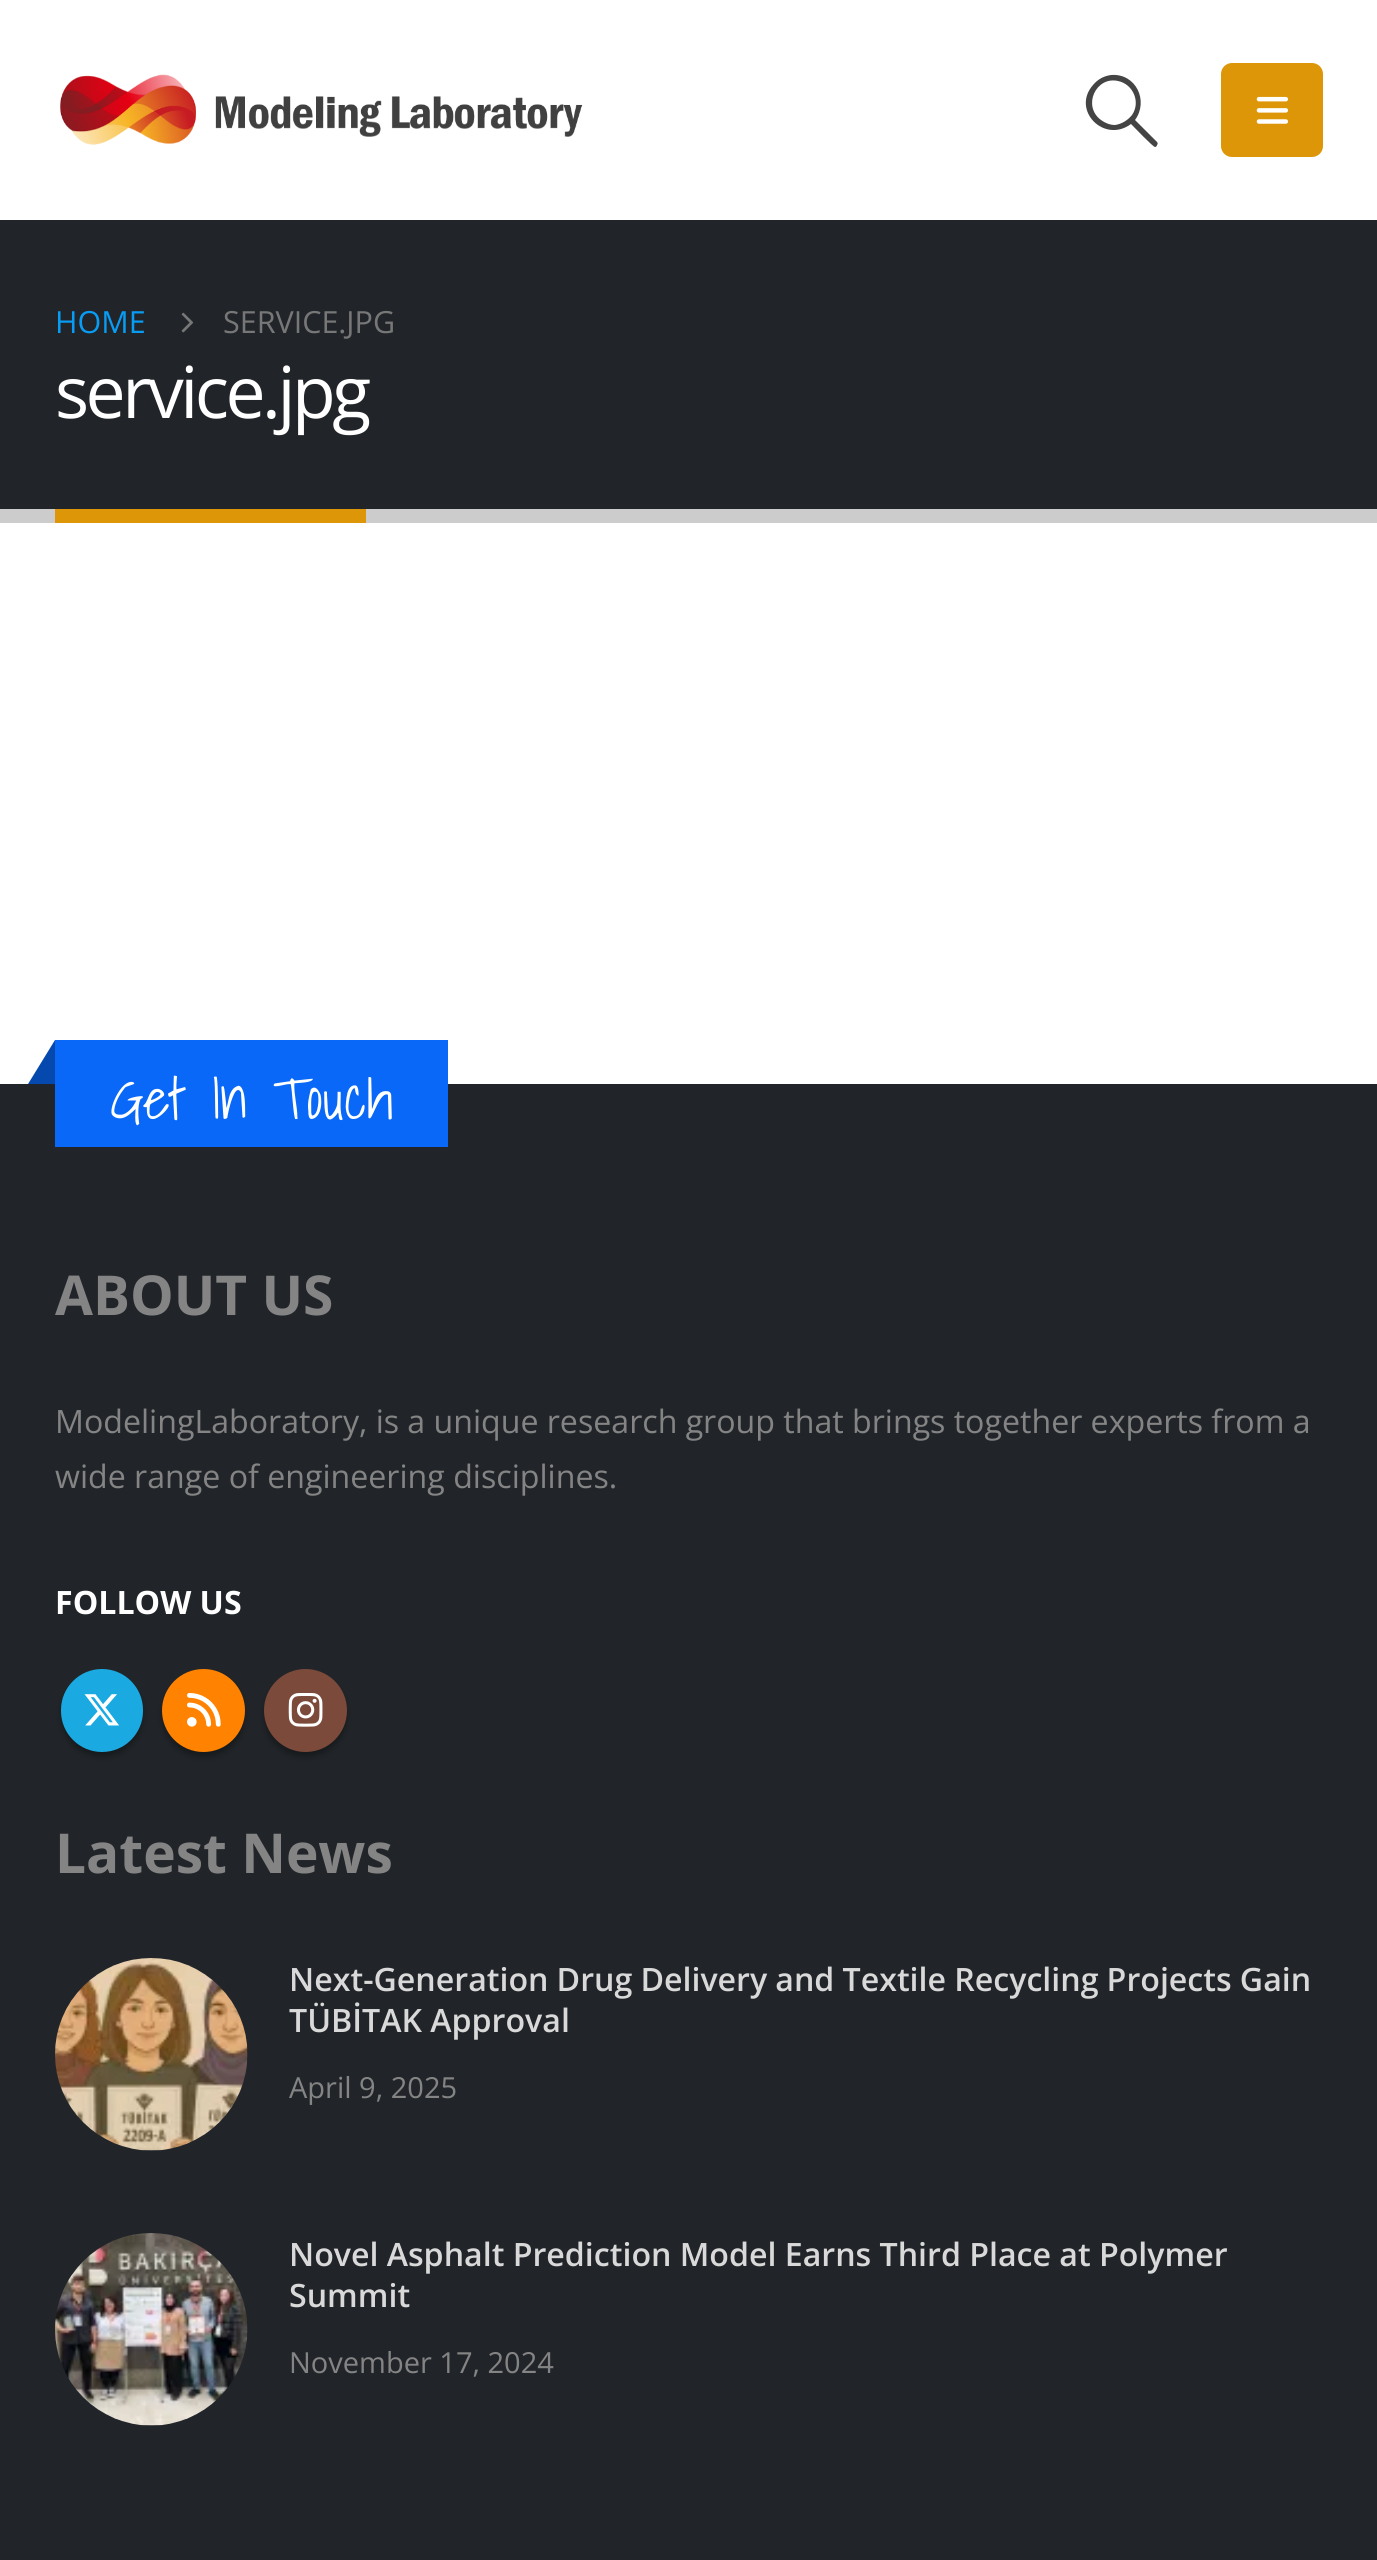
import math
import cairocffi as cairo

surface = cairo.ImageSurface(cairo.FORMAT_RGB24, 1377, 2560)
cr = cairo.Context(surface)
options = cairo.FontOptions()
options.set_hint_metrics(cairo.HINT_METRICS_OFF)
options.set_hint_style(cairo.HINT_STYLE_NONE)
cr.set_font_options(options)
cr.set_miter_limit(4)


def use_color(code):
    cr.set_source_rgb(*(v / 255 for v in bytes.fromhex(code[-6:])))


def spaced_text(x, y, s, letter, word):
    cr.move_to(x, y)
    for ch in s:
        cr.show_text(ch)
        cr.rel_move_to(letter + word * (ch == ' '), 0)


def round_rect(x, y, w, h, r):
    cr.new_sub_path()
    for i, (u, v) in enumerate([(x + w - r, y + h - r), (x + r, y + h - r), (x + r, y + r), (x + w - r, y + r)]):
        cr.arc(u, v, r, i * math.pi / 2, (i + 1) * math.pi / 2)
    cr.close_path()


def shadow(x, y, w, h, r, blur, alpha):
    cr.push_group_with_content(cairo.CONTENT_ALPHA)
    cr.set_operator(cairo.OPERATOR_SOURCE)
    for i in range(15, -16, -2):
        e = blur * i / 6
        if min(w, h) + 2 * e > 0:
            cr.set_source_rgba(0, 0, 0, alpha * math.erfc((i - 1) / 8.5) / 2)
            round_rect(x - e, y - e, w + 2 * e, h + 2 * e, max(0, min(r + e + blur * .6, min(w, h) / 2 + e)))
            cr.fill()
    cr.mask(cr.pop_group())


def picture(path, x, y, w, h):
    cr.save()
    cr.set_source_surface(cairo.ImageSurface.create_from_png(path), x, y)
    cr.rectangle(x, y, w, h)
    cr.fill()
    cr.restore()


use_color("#ffffff")
cr.paint()
picture("img1.png", 60, 74, 523, 71)
use_color("#444444")
cr.new_path()
cr.move_to(1111, 75)
cr.curve_to(1104, 76, 1098, 79, 1093, 85)
cr.curve_to(1071, 110, 1104, 144, 1131, 124)
cr.curve_to(1133, 126, 1153, 147, 1155, 147)
cr.curve_to(1156, 147, 1157, 146, 1157, 145)
cr.curve_to(1159, 143, 1156, 141, 1155, 140)
cr.line_to(1135, 120)
cr.curve_to(1149, 101, 1136, 73, 1111, 75)
cr.close_path()
cr.move_to(1118, 81)
cr.curve_to(1133, 84, 1141, 102, 1132, 115)
cr.curve_to(1128, 120, 1122, 124, 1115, 125)
cr.curve_to(1110, 125, 1105, 123, 1101, 120)
cr.curve_to(1082, 106, 1096, 76, 1118, 81)
cr.close_path()
cr.fill()
use_color("#dd9608")
round_rect(1221, 63, 102, 94, 11)
cr.fill()
picture("img2.png", 1256, 96, 32, 28)
use_color("#212529")
cr.rectangle(0, 220, 1377, 289)
cr.fill()
use_color("#cccccc")
cr.rectangle(0, 509, 1377, 14)
cr.fill()
cr.select_font_face("Open Sans")
cr.set_font_size(30.5)
use_color("#099cf4")
cr.move_to(55, 333)
cr.show_text("HOME")
picture("img3.png", 181, 312, 13, 21)
use_color("#777777")
cr.move_to(223, 333)
cr.show_text("SERVICE.JPG")
cr.set_font_size(71.5)
use_color("#ffffff")
spaced_text(55, 418, "service.jpg", -3.5, 0)
use_color("#dd9608")
cr.rectangle(55, 509, 311, 14)
cr.fill()
use_color("#212529")
cr.rectangle(0, 1084, 1377, 1476)
cr.fill()
use_color("#0968f7")
cr.rectangle(55, 1040, 393, 107)
cr.fill()
use_color("#0649ae")
cr.new_path()
cr.move_to(55, 1040)
cr.line_to(55, 1084)
cr.line_to(28, 1084)
cr.close_path()
cr.fill()
cr.select_font_face("Shadows Into Light Light")
cr.set_font_size(57)
use_color("#ffffff")
cr.move_to(110, 1119)
cr.show_text("Get In Touch")
cr.select_font_face("Open Sans", cairo.FONT_SLANT_NORMAL, cairo.FONT_WEIGHT_BOLD)
cr.set_font_size(55)
use_color("#848484")
cr.move_to(55, 1315)
cr.show_text("ABOUT US")
cr.select_font_face("Open Sans")
cr.set_font_size(32.15)
spaced_text(55, 1433, "ModelingLaboratory, is a unique research group that brings together experts from a", 0, -0.1)
cr.move_to(55, 1488)
cr.show_text("wide range of engineering disciplines.")
cr.select_font_face("Open Sans", cairo.FONT_SLANT_NORMAL, cairo.FONT_WEIGHT_BOLD)
use_color("#ffffff")
cr.move_to(55, 1614)
cr.show_text("FOLLOW US")
use_color("#000000")
shadow(61, 1675, 82, 82, 41, 3, 0.3)
use_color("#1aa9e1")
round_rect(61, 1669, 82, 83, 41)
cr.fill()
picture("img4.png", 84, 1694, 35, 32)
use_color("#000000")
shadow(162, 1675, 83, 82, 41, 3, 0.3)
use_color("#ff8201")
cr.arc(203.5, 1710.5, 41.5, 0, 2 * math.pi)
cr.fill()
picture("img5.png", 187, 1693, 34, 34)
use_color("#000000")
shadow(264, 1675, 83, 82, 41, 3, 0.3)
use_color("#7c4a3a")
cr.arc(305.5, 1710.5, 41.5, 0, 2 * math.pi)
cr.fill()
picture("img6.png", 288, 1693, 35, 34)
cr.set_font_size(55)
use_color("#848484")
cr.move_to(55, 1873)
cr.show_text("Latest News")
picture("img7.png", 55, 1958, 193, 193)
cr.select_font_face("Open Sans SemiBold")
cr.set_font_size(32.15)
use_color("#d9d9d9")
spaced_text(289, 1991, "Next-Generation Drug Delivery and Textile Recycling Projects Gain", 0, -0.25)
cr.move_to(289, 2032)
cr.show_text("TÜBİTAK Approval")
cr.select_font_face("Open Sans")
cr.set_font_size(29)
use_color("#848484")
cr.move_to(289, 2098)
cr.show_text("April 9, 2025")
picture("img8.png", 55, 2233, 193, 193)
cr.select_font_face("Open Sans SemiBold")
cr.set_font_size(32.15)
use_color("#d9d9d9")
spaced_text(289, 2266, "Novel Asphalt Prediction Model Earns Third Place at Polymer", 0, -0.1)
cr.move_to(289, 2307)
cr.show_text("Summit")
cr.select_font_face("Open Sans")
cr.set_font_size(29)
use_color("#848484")
cr.move_to(289, 2373)
cr.show_text("November 17, 2024")
surface.write_to_png("result.png")
